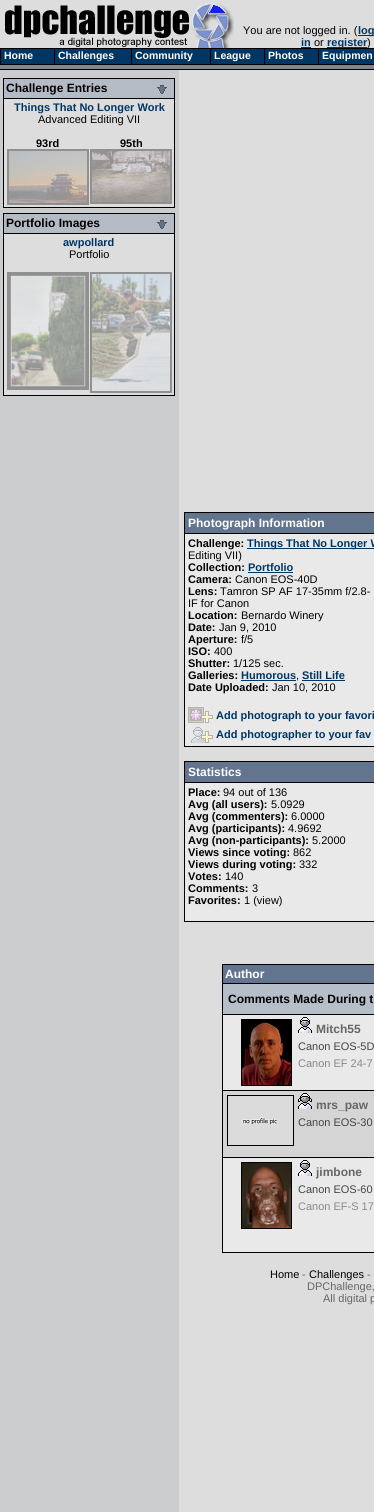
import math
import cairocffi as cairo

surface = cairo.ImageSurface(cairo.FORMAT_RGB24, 374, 1512)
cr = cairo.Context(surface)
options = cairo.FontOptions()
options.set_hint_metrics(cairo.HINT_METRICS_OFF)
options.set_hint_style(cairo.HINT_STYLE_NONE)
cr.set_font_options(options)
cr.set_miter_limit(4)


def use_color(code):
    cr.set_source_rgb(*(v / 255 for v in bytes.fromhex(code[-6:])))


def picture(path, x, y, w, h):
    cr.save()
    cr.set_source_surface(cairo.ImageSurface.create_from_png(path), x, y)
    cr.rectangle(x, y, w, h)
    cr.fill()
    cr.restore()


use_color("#dddddd")
cr.paint()
use_color("#caccce")
cr.rectangle(0, 70, 179, 1442)
cr.fill()
picture("img1.png", 0, 0, 234, 48)
cr.select_font_face("Liberation Sans")
cr.set_font_size(11)
use_color("#000000")
cr.move_to(243, 34)
cr.show_text("You are not logged in. (")
use_color("#003664")
cr.rectangle(358, 35, 16, 1)
cr.fill()
cr.select_font_face("Liberation Sans", cairo.FONT_SLANT_NORMAL, cairo.FONT_WEIGHT_BOLD)
cr.move_to(358, 34)
cr.show_text("log")
cr.move_to(301, 46)
cr.show_text("in")
cr.rectangle(301, 47, 10, 1)
cr.fill()
cr.select_font_face("Liberation Sans")
use_color("#000000")
cr.move_to(314, 46)
cr.show_text("or")
use_color("#003664")
cr.rectangle(327, 47, 40, 1)
cr.fill()
cr.select_font_face("Liberation Sans", cairo.FONT_SLANT_NORMAL, cairo.FONT_WEIGHT_BOLD)
cr.move_to(327, 46)
cr.show_text("register")
cr.select_font_face("Liberation Sans")
use_color("#000000")
cr.move_to(367, 46)
cr.show_text(")")
picture("img2.png", 0, 65, 234, 5)
picture("img3.png", 234, 65, 140, 5)
cr.rectangle(0, 48, 374, 17)
cr.fill()
use_color("#003664")
cr.rectangle(1, 49, 53, 15)
cr.fill()
cr.select_font_face("Liberation Sans", cairo.FONT_SLANT_NORMAL, cairo.FONT_WEIGHT_BOLD)
cr.set_font_size(10.5)
use_color("#ffffff")
cr.move_to(4, 59)
cr.show_text("Home")
use_color("#003664")
cr.rectangle(55, 49, 76, 15)
cr.fill()
use_color("#ffffff")
cr.move_to(58, 59)
cr.show_text("Challenges")
use_color("#003664")
cr.rectangle(132, 49, 78, 15)
cr.fill()
use_color("#ffffff")
cr.move_to(135, 59)
cr.show_text("Community")
use_color("#003664")
cr.rectangle(211, 49, 53, 15)
cr.fill()
use_color("#ffffff")
cr.move_to(214, 59)
cr.show_text("League")
use_color("#003664")
cr.rectangle(265, 49, 53, 15)
cr.fill()
use_color("#ffffff")
cr.move_to(268, 59)
cr.show_text("Photos")
use_color("#003664")
cr.rectangle(319, 49, 55, 15)
cr.fill()
use_color("#ffffff")
cr.move_to(322, 59)
cr.show_text("Equipmen")
use_color("#dddddd")
cr.rectangle(4, 99, 170, 108)
cr.fill()
cr.rectangle(3.5, 78.5, 171, 129)
use_color("#000000")
cr.set_line_width(1)
cr.stroke()
use_color("#b5bbc5")
cr.rectangle(4, 79, 170, 19)
cr.fill()
use_color("#000000")
cr.rectangle(4, 98, 170, 1)
cr.fill()
cr.set_font_size(12)
cr.move_to(6, 92)
cr.show_text("Challenge Entries")
picture("img4.png", 157, 85, 10, 9)
cr.set_font_size(11)
use_color("#003664")
cr.move_to(14, 111)
cr.show_text("Things That No Longer Work")
cr.select_font_face("Liberation Sans")
use_color("#000000")
cr.move_to(38, 123)
cr.show_text("Advanced Editing VII")
cr.select_font_face("Liberation Sans", cairo.FONT_SLANT_NORMAL, cairo.FONT_WEIGHT_BOLD)
cr.move_to(36, 147)
cr.show_text("93rd")
cr.rectangle(8, 150, 80, 54)
use_color("#909090")
cr.set_line_width(2)
cr.stroke()
picture("img5.png", 9, 151, 78, 52)
use_color("#000000")
cr.move_to(120, 147)
cr.show_text("95th")
cr.rectangle(91, 150, 80, 53)
use_color("#909090")
cr.stroke()
picture("img6.png", 92, 151, 78, 51)
use_color("#dddddd")
cr.rectangle(4, 234, 170, 161)
cr.fill()
cr.rectangle(3.5, 213.5, 171, 182)
use_color("#000000")
cr.set_line_width(1)
cr.stroke()
use_color("#b5bbc5")
cr.rectangle(4, 214, 170, 19)
cr.fill()
use_color("#000000")
cr.rectangle(4, 233, 170, 1)
cr.fill()
cr.set_font_size(12)
cr.move_to(6, 227)
cr.show_text("Portfolio Images")
picture("img4.png", 157, 220, 10, 9)
cr.set_font_size(11)
use_color("#003664")
cr.move_to(63, 246)
cr.show_text("awpollard")
cr.select_font_face("Liberation Sans")
use_color("#000000")
cr.move_to(69, 258)
cr.show_text("Portfolio")
cr.rectangle(8, 273, 80, 116)
use_color("#909090")
cr.set_line_width(2)
cr.stroke()
picture("img7.png", 9, 274, 78, 114)
cr.rectangle(91, 273, 80, 119)
cr.stroke()
picture("img8.png", 92, 274, 78, 117)
use_color("#000000")
cr.rectangle(184, 512, 190, 235)
cr.fill()
use_color("#63748f")
cr.rectangle(185, 513, 189, 20)
cr.fill()
cr.select_font_face("Liberation Sans", cairo.FONT_SLANT_NORMAL, cairo.FONT_WEIGHT_BOLD)
cr.set_font_size(12)
use_color("#ffffff")
cr.move_to(188, 527)
cr.show_text("Photograph Information")
use_color("#e9e9e9")
cr.rectangle(185, 534, 189, 212)
cr.fill()
cr.set_font_size(11)
use_color("#000000")
cr.move_to(188, 547)
cr.show_text("Challenge:")
use_color("#003664")
cr.rectangle(247, 548, 127, 1)
cr.fill()
cr.move_to(247, 547)
cr.show_text("Things That No Longer W")
cr.select_font_face("Liberation Sans")
use_color("#000000")
cr.move_to(188, 559)
cr.show_text("Editing VII)")
cr.select_font_face("Liberation Sans", cairo.FONT_SLANT_NORMAL, cairo.FONT_WEIGHT_BOLD)
cr.move_to(188, 571)
cr.show_text("Collection:")
use_color("#003664")
cr.move_to(248, 571)
cr.show_text("Portfolio")
cr.rectangle(248, 572, 45, 1)
cr.fill()
use_color("#000000")
cr.move_to(188, 583)
cr.show_text("Camera:")
cr.select_font_face("Liberation Sans")
cr.move_to(235, 583)
cr.show_text("Canon EOS-40D")
cr.select_font_face("Liberation Sans", cairo.FONT_SLANT_NORMAL, cairo.FONT_WEIGHT_BOLD)
cr.move_to(188, 595)
cr.show_text("Lens:")
cr.select_font_face("Liberation Sans")
cr.move_to(220, 595)
cr.show_text("Tamron SP AF 17-35mm f/2.8-")
cr.move_to(188, 607)
cr.show_text("IF for Canon")
cr.select_font_face("Liberation Sans", cairo.FONT_SLANT_NORMAL, cairo.FONT_WEIGHT_BOLD)
cr.move_to(188, 619)
cr.show_text("Location:")
cr.select_font_face("Liberation Sans")
cr.move_to(241, 619)
cr.show_text("Bernardo Winery")
cr.select_font_face("Liberation Sans", cairo.FONT_SLANT_NORMAL, cairo.FONT_WEIGHT_BOLD)
cr.move_to(188, 631)
cr.show_text("Date:")
cr.select_font_face("Liberation Sans")
cr.move_to(219, 631)
cr.show_text("Jan 9, 2010")
cr.select_font_face("Liberation Sans", cairo.FONT_SLANT_NORMAL, cairo.FONT_WEIGHT_BOLD)
cr.move_to(188, 643)
cr.show_text("Aperture:")
cr.select_font_face("Liberation Sans")
cr.move_to(241, 643)
cr.show_text("f/5")
cr.select_font_face("Liberation Sans", cairo.FONT_SLANT_NORMAL, cairo.FONT_WEIGHT_BOLD)
cr.move_to(188, 655)
cr.show_text("ISO:")
cr.select_font_face("Liberation Sans")
cr.move_to(214, 655)
cr.show_text("400")
cr.select_font_face("Liberation Sans", cairo.FONT_SLANT_NORMAL, cairo.FONT_WEIGHT_BOLD)
cr.move_to(188, 667)
cr.show_text("Shutter:")
cr.select_font_face("Liberation Sans")
cr.move_to(233, 667)
cr.show_text("1/125 sec.")
cr.select_font_face("Liberation Sans", cairo.FONT_SLANT_NORMAL, cairo.FONT_WEIGHT_BOLD)
cr.move_to(188, 679)
cr.show_text("Galleries:")
use_color("#003664")
cr.move_to(241, 679)
cr.show_text("Humorous")
cr.rectangle(241, 680, 55, 1)
cr.fill()
cr.select_font_face("Liberation Sans")
use_color("#000000")
cr.move_to(296, 679)
cr.show_text(",")
cr.select_font_face("Liberation Sans", cairo.FONT_SLANT_NORMAL, cairo.FONT_WEIGHT_BOLD)
use_color("#003664")
cr.move_to(302, 679)
cr.show_text("Still Life")
cr.rectangle(302, 680, 43, 1)
cr.fill()
use_color("#000000")
cr.move_to(188, 691)
cr.show_text("Date Uploaded:")
cr.select_font_face("Liberation Sans")
cr.move_to(272, 691)
cr.show_text("Jan 10, 2010")
picture("img9.png", 188, 707, 25, 16)
cr.select_font_face("Liberation Sans", cairo.FONT_SLANT_NORMAL, cairo.FONT_WEIGHT_BOLD)
use_color("#003664")
cr.move_to(216, 719)
cr.show_text("Add photograph to your favori")
picture("img10.png", 191, 727, 22, 16)
cr.move_to(216, 738)
cr.show_text("Add photographer to your fav")
use_color("#000000")
cr.rectangle(184, 761, 190, 161)
cr.fill()
use_color("#63748f")
cr.rectangle(185, 762, 189, 20)
cr.fill()
cr.set_font_size(12)
use_color("#ffffff")
cr.move_to(188, 776)
cr.show_text("Statistics")
use_color("#e9e9e9")
cr.rectangle(185, 783, 189, 138)
cr.fill()
cr.set_font_size(11)
use_color("#000000")
cr.move_to(188, 796)
cr.show_text("Place:")
cr.select_font_face("Liberation Sans")
cr.move_to(223, 796)
cr.show_text("94 out of 136")
cr.select_font_face("Liberation Sans", cairo.FONT_SLANT_NORMAL, cairo.FONT_WEIGHT_BOLD)
cr.move_to(188, 808)
cr.show_text("Avg (all users):")
cr.select_font_face("Liberation Sans")
cr.move_to(271, 808)
cr.show_text("5.0929")
cr.select_font_face("Liberation Sans", cairo.FONT_SLANT_NORMAL, cairo.FONT_WEIGHT_BOLD)
cr.move_to(188, 820)
cr.show_text("Avg (commenters):")
cr.select_font_face("Liberation Sans")
cr.move_to(291, 820)
cr.show_text("6.0000")
cr.select_font_face("Liberation Sans", cairo.FONT_SLANT_NORMAL, cairo.FONT_WEIGHT_BOLD)
cr.move_to(188, 832)
cr.show_text("Avg (participants):")
cr.select_font_face("Liberation Sans")
cr.move_to(288, 832)
cr.show_text("4.9692")
cr.select_font_face("Liberation Sans", cairo.FONT_SLANT_NORMAL, cairo.FONT_WEIGHT_BOLD)
cr.move_to(188, 844)
cr.show_text("Avg (non-participants):")
cr.select_font_face("Liberation Sans")
cr.move_to(312, 844)
cr.show_text("5.2000")
cr.select_font_face("Liberation Sans", cairo.FONT_SLANT_NORMAL, cairo.FONT_WEIGHT_BOLD)
cr.move_to(188, 856)
cr.show_text("Views since voting:")
cr.select_font_face("Liberation Sans")
cr.move_to(293, 856)
cr.show_text("862")
cr.select_font_face("Liberation Sans", cairo.FONT_SLANT_NORMAL, cairo.FONT_WEIGHT_BOLD)
cr.move_to(188, 868)
cr.show_text("Views during voting:")
cr.select_font_face("Liberation Sans")
cr.move_to(299, 868)
cr.show_text("332")
cr.select_font_face("Liberation Sans", cairo.FONT_SLANT_NORMAL, cairo.FONT_WEIGHT_BOLD)
cr.move_to(188, 880)
cr.show_text("Votes:")
cr.select_font_face("Liberation Sans")
cr.move_to(225, 880)
cr.show_text("140")
cr.select_font_face("Liberation Sans", cairo.FONT_SLANT_NORMAL, cairo.FONT_WEIGHT_BOLD)
cr.move_to(188, 892)
cr.show_text("Comments:")
cr.select_font_face("Liberation Sans")
cr.move_to(252, 892)
cr.show_text("3")
cr.select_font_face("Liberation Sans", cairo.FONT_SLANT_NORMAL, cairo.FONT_WEIGHT_BOLD)
cr.move_to(188, 904)
cr.show_text("Favorites:")
cr.select_font_face("Liberation Sans")
cr.move_to(244, 904)
cr.show_text("1 (view)")
cr.rectangle(222, 964, 152, 289)
cr.fill()
use_color("#63748f")
cr.rectangle(223, 965, 151, 18)
cr.fill()
cr.select_font_face("Liberation Sans", cairo.FONT_SLANT_NORMAL, cairo.FONT_WEIGHT_BOLD)
cr.set_font_size(12)
use_color("#ffffff")
cr.move_to(225, 978)
cr.show_text("Author")
use_color("#b6beca")
cr.rectangle(223, 984, 151, 30)
cr.fill()
use_color("#000000")
cr.move_to(228, 1003)
cr.show_text("Comments Made During t")
use_color("#e9e9e9")
cr.rectangle(223, 1015, 151, 75)
cr.fill()
cr.rectangle(241.5, 1019.5, 50, 66)
use_color("#000000")
cr.set_line_width(1)
cr.stroke()
picture("img11.png", 242, 1020, 49, 65)
picture("img12.png", 298, 1017, 14, 16)
use_color("#666666")
cr.move_to(316, 1033)
cr.show_text("Mitch55")
cr.select_font_face("Liberation Sans")
cr.set_font_size(11)
use_color("#444444")
cr.move_to(298, 1050)
cr.show_text("Canon EOS-5D")
use_color("#888888")
cr.move_to(298, 1067)
cr.show_text("Canon EF 24-7")
use_color("#d5d5d5")
cr.rectangle(223, 1091, 151, 66)
cr.fill()
cr.rectangle(227.5, 1095.5, 66, 50)
use_color("#000000")
cr.stroke()
picture("img13.png", 228, 1096, 65, 49)
picture("img14.png", 298, 1093, 14, 16)
cr.select_font_face("Liberation Sans", cairo.FONT_SLANT_NORMAL, cairo.FONT_WEIGHT_BOLD)
cr.set_font_size(12)
use_color("#666666")
cr.move_to(316, 1109)
cr.show_text("mrs_paw")
cr.select_font_face("Liberation Sans")
cr.set_font_size(11)
use_color("#444444")
cr.move_to(298, 1126)
cr.show_text("Canon EOS-30")
use_color("#e9e9e9")
cr.rectangle(223, 1158, 151, 94)
cr.fill()
cr.rectangle(241.5, 1162.5, 50, 66)
use_color("#000000")
cr.stroke()
picture("img15.png", 242, 1163, 49, 65)
picture("img12.png", 298, 1160, 14, 16)
cr.select_font_face("Liberation Sans", cairo.FONT_SLANT_NORMAL, cairo.FONT_WEIGHT_BOLD)
cr.set_font_size(12)
use_color("#666666")
cr.move_to(316, 1176)
cr.show_text("jimbone")
cr.select_font_face("Liberation Sans")
cr.set_font_size(11)
use_color("#444444")
cr.move_to(298, 1193)
cr.show_text("Canon EOS-60")
use_color("#888888")
cr.move_to(298, 1210)
cr.show_text("Canon EF-S 17")
use_color("#000000")
cr.move_to(270, 1278)
cr.show_text("Home")
use_color("#666666")
cr.move_to(302, 1278)
cr.show_text("-")
use_color("#000000")
cr.move_to(309, 1278)
cr.show_text("Challenges")
use_color("#666666")
cr.move_to(367, 1278)
cr.show_text("-")
cr.move_to(307, 1290)
cr.show_text("DPChallenge,")
cr.move_to(323, 1302)
cr.show_text("All digital p")
surface.write_to_png("result.png")
